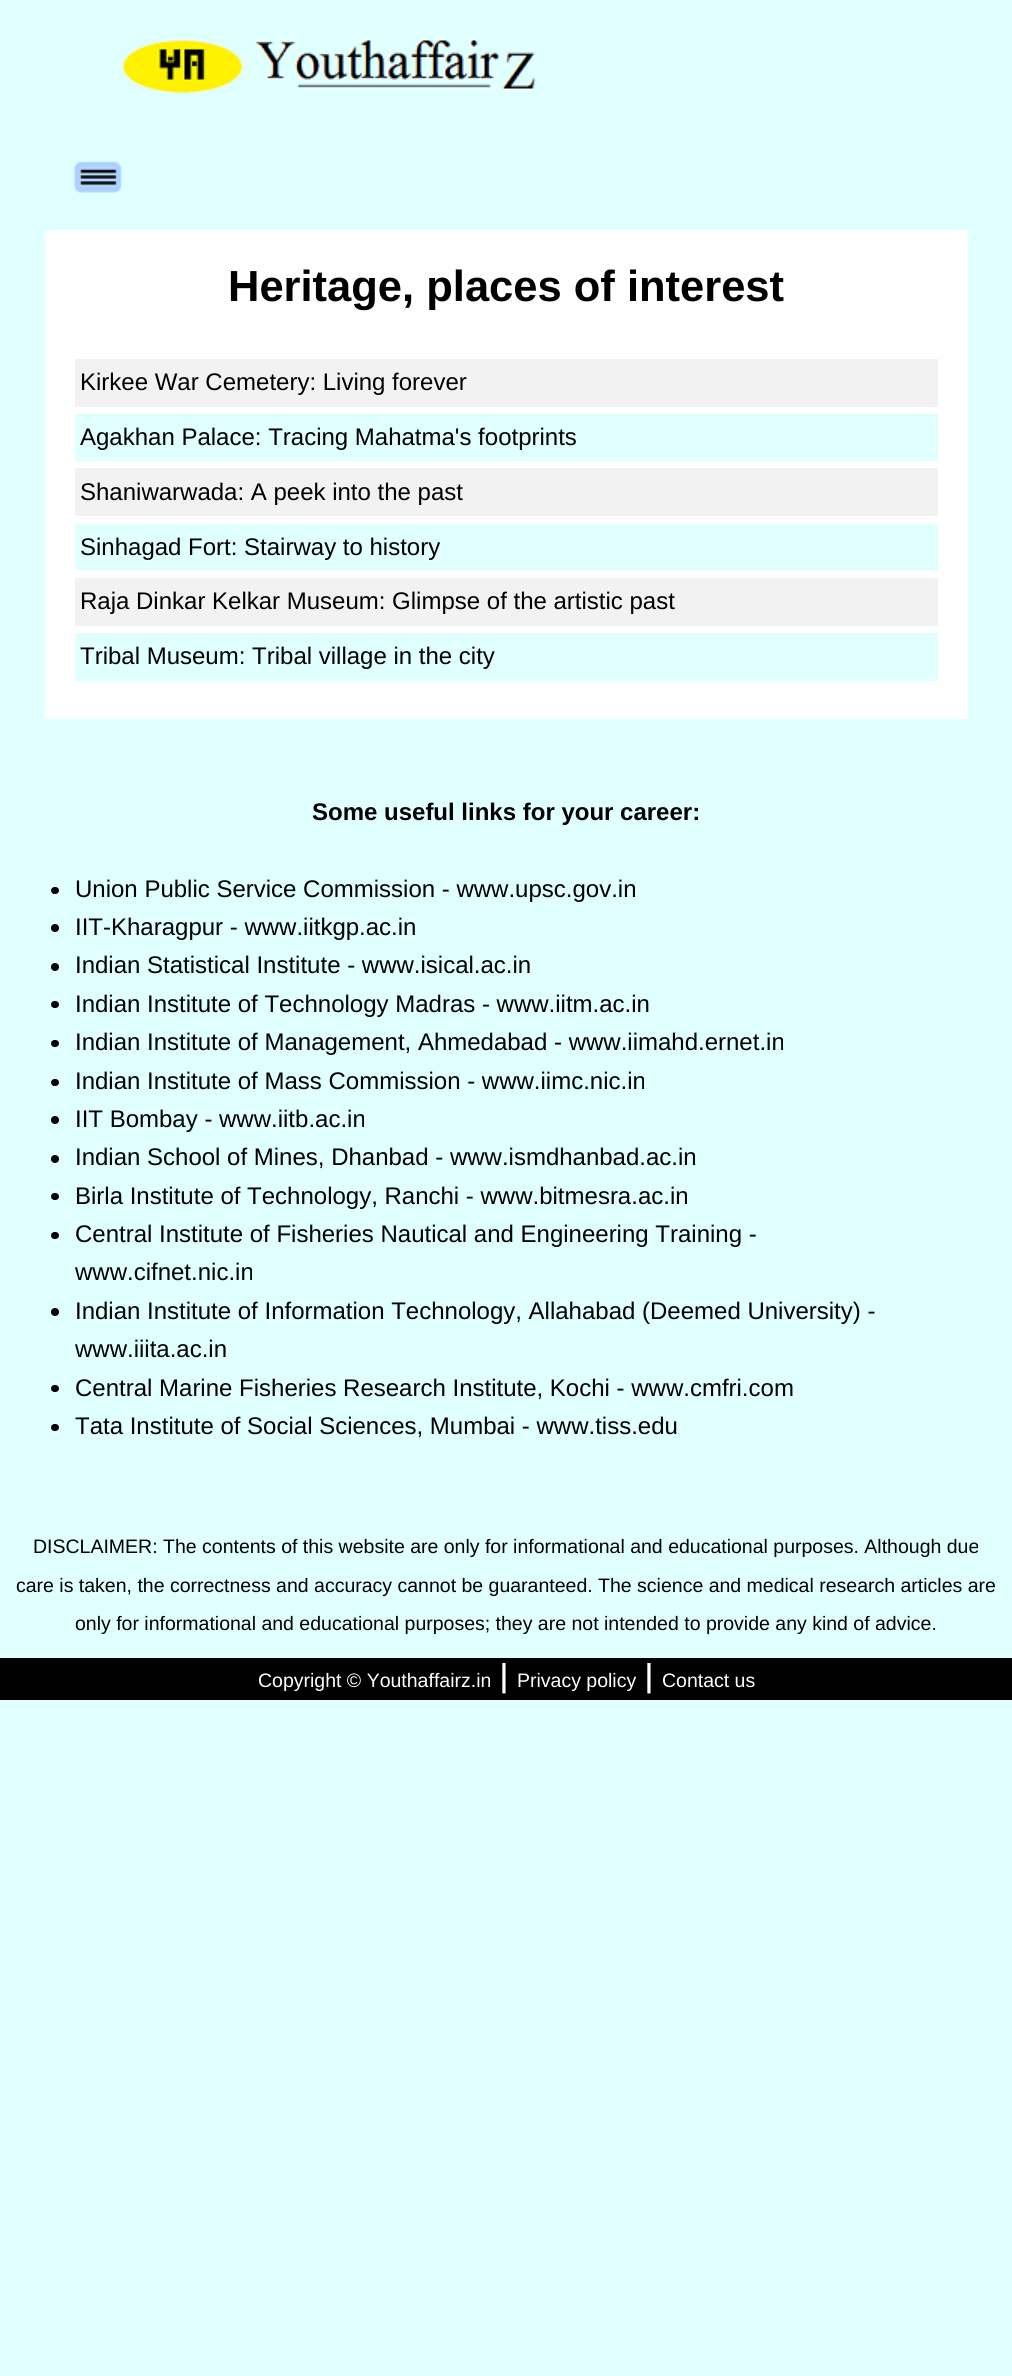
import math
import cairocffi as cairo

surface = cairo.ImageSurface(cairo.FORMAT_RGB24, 1012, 2376)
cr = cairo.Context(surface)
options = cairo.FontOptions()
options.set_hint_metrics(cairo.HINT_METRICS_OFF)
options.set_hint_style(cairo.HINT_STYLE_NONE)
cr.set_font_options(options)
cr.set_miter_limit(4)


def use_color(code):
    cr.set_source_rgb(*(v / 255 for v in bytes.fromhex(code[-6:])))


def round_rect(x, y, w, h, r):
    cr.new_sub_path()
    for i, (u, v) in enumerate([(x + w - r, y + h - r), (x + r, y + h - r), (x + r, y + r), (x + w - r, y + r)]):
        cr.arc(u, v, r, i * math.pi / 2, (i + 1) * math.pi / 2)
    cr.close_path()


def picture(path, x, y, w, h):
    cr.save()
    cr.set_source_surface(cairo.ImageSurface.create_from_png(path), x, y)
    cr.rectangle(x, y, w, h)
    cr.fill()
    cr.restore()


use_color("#e0ffff")
cr.paint()
picture("img1.png", 122, 39, 414, 55)
picture("img2.png", 73, 161, 49, 32)
use_color("#ffffff")
cr.rectangle(45, 230, 923, 489)
cr.fill()
cr.select_font_face("Liberation Sans", cairo.FONT_SLANT_NORMAL, cairo.FONT_WEIGHT_BOLD)
cr.set_font_size(43.5)
use_color("#000000")
cr.move_to(228, 301)
cr.show_text("Heritage, places of interest")
use_color("#f2f2f2")
cr.rectangle(75, 359, 863, 48)
cr.fill()
cr.select_font_face("Liberation Sans")
cr.set_font_size(24)
use_color("#000000")
cr.move_to(80, 390)
cr.show_text("Kirkee War Cemetery: Living forever")
use_color("#e0ffff")
cr.rectangle(75, 414, 863, 47)
cr.fill()
use_color("#000000")
cr.move_to(80, 445)
cr.show_text("Agakhan Palace: Tracing Mahatma's footprints")
use_color("#f2f2f2")
cr.rectangle(75, 468, 863, 48)
cr.fill()
use_color("#000000")
cr.move_to(80, 500)
cr.show_text("Shaniwarwada: A peek into the past")
use_color("#e0ffff")
cr.rectangle(75, 524, 863, 46)
cr.fill()
use_color("#000000")
cr.move_to(80, 555)
cr.show_text("Sinhagad Fort: Stairway to history")
use_color("#f2f2f2")
cr.rectangle(75, 578, 863, 48)
cr.fill()
use_color("#000000")
cr.move_to(80, 609)
cr.show_text("Raja Dinkar Kelkar Museum: Glimpse of the artistic past")
use_color("#e0ffff")
cr.rectangle(75, 633, 863, 48)
cr.fill()
use_color("#000000")
cr.move_to(80, 664)
cr.show_text("Tribal Museum: Tribal village in the city")
cr.select_font_face("Liberation Sans", cairo.FONT_SLANT_NORMAL, cairo.FONT_WEIGHT_BOLD)
cr.move_to(312, 820)
cr.show_text("Some useful links for your career:")
round_rect(51, 887, 8, 7, 3.5)
cr.fill()
cr.select_font_face("Liberation Sans")
cr.move_to(75, 897)
cr.show_text("Union Public Service Commission - www.upsc.gov.in")
cr.new_path()
cr.arc(55, 928, 4, 0, 2 * math.pi)
cr.fill()
cr.move_to(75, 935)
cr.show_text("IIT-Kharagpur - www.iitkgp.ac.in")
cr.new_path()
cr.arc(55, 967, 4, 0, 2 * math.pi)
cr.fill()
cr.move_to(75, 973)
cr.show_text("Indian Statistical Institute - www.isical.ac.in")
round_rect(51, 1001, 8, 7, 3.5)
cr.fill()
cr.move_to(75, 1012)
cr.show_text("Indian Institute of Technology Madras - www.iitm.ac.in")
round_rect(51, 1040, 8, 7, 3.5)
cr.fill()
cr.move_to(75, 1050)
cr.show_text("Indian Institute of Management, Ahmedabad - www.iimahd.ernet.in")
round_rect(51, 1079, 8, 7, 3.5)
cr.fill()
cr.move_to(75, 1089)
cr.show_text("Indian Institute of Mass Commission - www.iimc.nic.in")
cr.new_path()
cr.arc(55, 1120, 4, 0, 2 * math.pi)
cr.fill()
cr.move_to(75, 1127)
cr.show_text("IIT Bombay - www.iitb.ac.in")
cr.new_path()
cr.arc(55, 1159, 4, 0, 2 * math.pi)
cr.fill()
cr.move_to(75, 1165)
cr.show_text("Indian School of Mines, Dhanbad - www.ismdhanbad.ac.in")
round_rect(51, 1193, 8, 7, 3.5)
cr.fill()
cr.move_to(75, 1204)
cr.show_text("Birla Institute of Technology, Ranchi - www.bitmesra.ac.in")
round_rect(51, 1232, 8, 7, 3.5)
cr.fill()
cr.move_to(75, 1242)
cr.show_text("Central Institute of Fisheries Nautical and Engineering Training -")
cr.move_to(75, 1280)
cr.show_text("www.cifnet.nic.in")
cr.new_path()
cr.arc(55, 1312, 4, 0, 2 * math.pi)
cr.fill()
cr.move_to(75, 1319)
cr.show_text("Indian Institute of Information Technology, Allahabad (Deemed University) -")
cr.move_to(75, 1357)
cr.show_text("www.iiita.ac.in")
round_rect(51, 1385, 8, 7, 3.5)
cr.fill()
cr.move_to(75, 1396)
cr.show_text("Central Marine Fisheries Research Institute, Kochi - www.cmfri.com")
round_rect(51, 1424, 8, 7, 3.5)
cr.fill()
cr.move_to(75, 1434)
cr.show_text("Tata Institute of Social Sciences, Mumbai - www.tiss.edu")
cr.set_font_size(19.5)
cr.move_to(33, 1553)
cr.show_text("DISCLAIMER: The contents of this website are only for informational and educational purposes. Although due")
cr.move_to(16, 1592)
cr.show_text("care is taken, the correctness and accuracy cannot be guaranteed. The science and medical research articles are")
cr.move_to(75, 1630)
cr.show_text("only for informational and educational purposes; they are not intended to provide any kind of advice.")
cr.rectangle(0, 1658, 1012, 42)
cr.fill()
use_color("#ffffff")
cr.move_to(258, 1687)
cr.show_text("Copyright © Youthaffairz.in")
cr.select_font_face("DejaVu Sans", cairo.FONT_SLANT_NORMAL, cairo.FONT_WEIGHT_BOLD)
cr.set_font_size(30)
cr.move_to(496, 1687)
cr.show_text("∣")
cr.select_font_face("Liberation Sans")
cr.set_font_size(19.5)
cr.move_to(517, 1687)
cr.show_text("Privacy policy")
cr.select_font_face("DejaVu Sans", cairo.FONT_SLANT_NORMAL, cairo.FONT_WEIGHT_BOLD)
cr.set_font_size(30)
cr.move_to(641, 1687)
cr.show_text("∣")
cr.select_font_face("Liberation Sans")
cr.set_font_size(19.5)
cr.move_to(662, 1687)
cr.show_text("Contact us")
surface.write_to_png("result.png")
